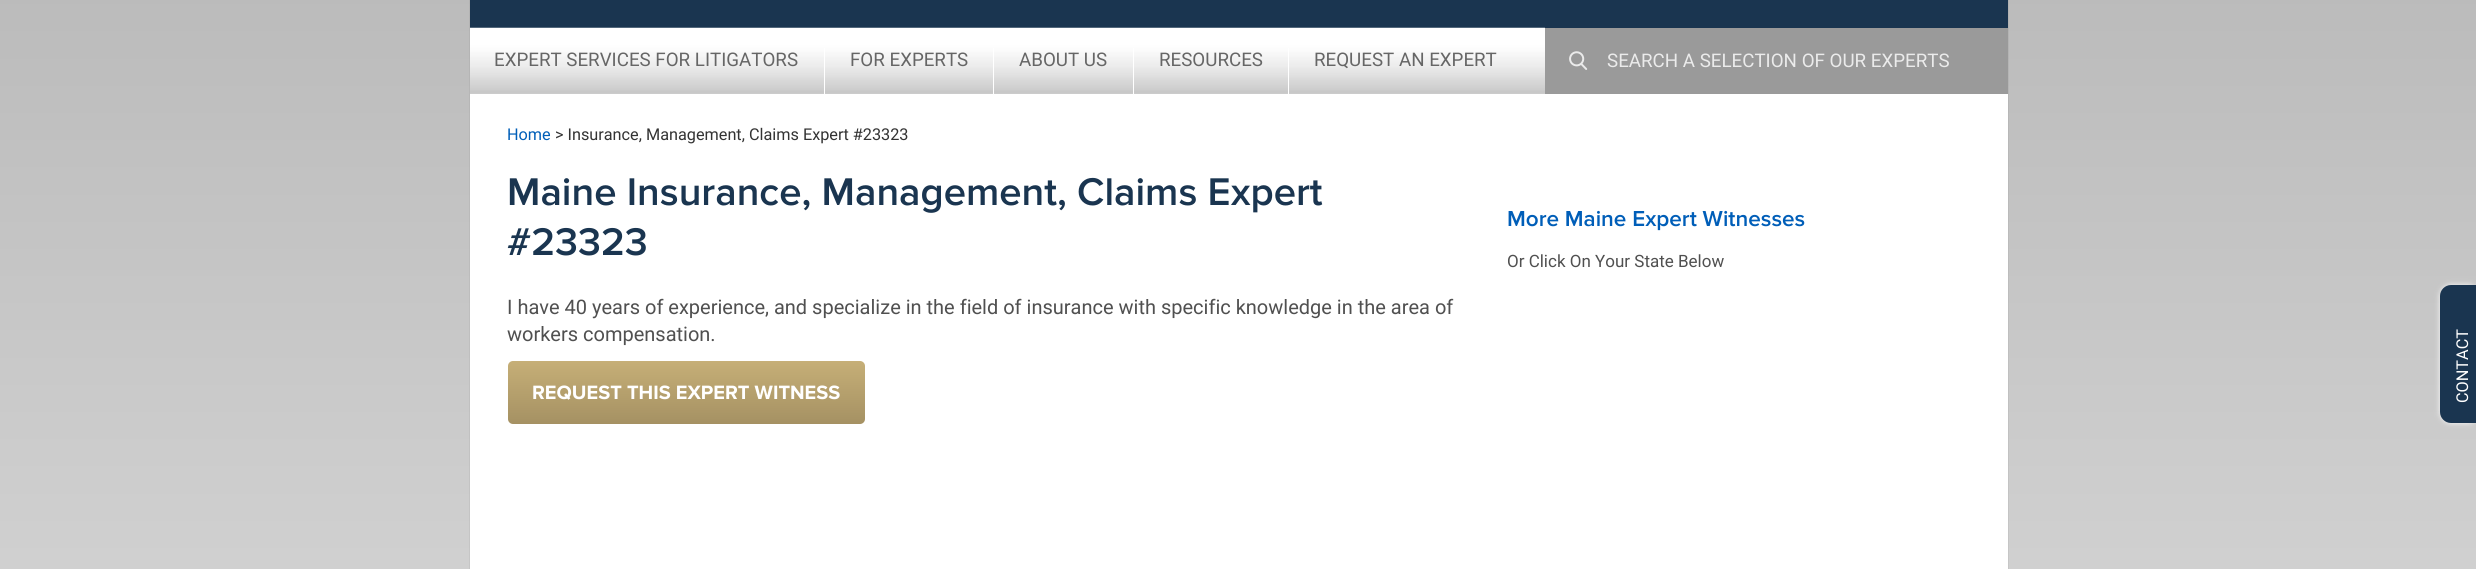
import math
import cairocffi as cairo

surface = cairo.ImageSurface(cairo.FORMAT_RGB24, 2476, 569)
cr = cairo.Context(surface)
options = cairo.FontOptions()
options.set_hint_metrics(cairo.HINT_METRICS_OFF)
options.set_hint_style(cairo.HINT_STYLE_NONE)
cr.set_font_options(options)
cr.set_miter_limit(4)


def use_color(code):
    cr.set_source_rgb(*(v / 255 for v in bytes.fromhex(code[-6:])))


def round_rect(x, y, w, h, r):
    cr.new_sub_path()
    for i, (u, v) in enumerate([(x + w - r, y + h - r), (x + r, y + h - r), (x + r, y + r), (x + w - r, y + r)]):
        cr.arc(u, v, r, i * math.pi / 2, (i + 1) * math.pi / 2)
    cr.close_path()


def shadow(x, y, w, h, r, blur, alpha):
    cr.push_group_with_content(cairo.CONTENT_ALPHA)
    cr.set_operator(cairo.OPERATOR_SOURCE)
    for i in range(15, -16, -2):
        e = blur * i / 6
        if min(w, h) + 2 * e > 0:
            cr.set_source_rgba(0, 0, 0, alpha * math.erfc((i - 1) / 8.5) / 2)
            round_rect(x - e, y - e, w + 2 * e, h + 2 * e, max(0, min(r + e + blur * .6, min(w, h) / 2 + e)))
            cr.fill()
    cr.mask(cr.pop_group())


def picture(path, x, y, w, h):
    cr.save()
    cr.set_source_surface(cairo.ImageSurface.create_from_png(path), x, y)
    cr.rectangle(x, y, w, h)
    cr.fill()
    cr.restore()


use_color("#ffffff")
cr.paint()
gradient = cairo.LinearGradient(1238, -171, 1238, 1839)
gradient.add_color_stop_rgba(0, 0.71, 0.71, 0.71, 1)
gradient.add_color_stop_rgba(1, 1, 1, 1, 1)
cr.set_source(gradient)
cr.rectangle(0, 0, 2476, 569)
cr.fill()
cr.rectangle(469.5, -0.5, 1539, 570)
cr.set_source_rgba(0, 0, 0, 0.05)
cr.set_line_width(1)
cr.stroke()
use_color("#ffffff")
cr.rectangle(470, 94, 1538, 475)
cr.fill()
use_color("#1a3550")
cr.rectangle(470, 0, 1538, 28)
cr.fill()
picture("img1.png", 470, 27, 1075, 67)
use_color("#ffffff")
cr.rectangle(824, 48, 1, 46)
cr.fill()
cr.select_font_face("Roboto")
cr.set_font_size(18.75)
use_color("#666666")
cr.move_to(494, 66)
cr.show_text("EXPERT SERVICES FOR LITIGATORS")
use_color("#ffffff")
cr.rectangle(993, 48, 1, 46)
cr.fill()
use_color("#666666")
cr.move_to(850, 66)
cr.show_text("FOR EXPERTS")
use_color("#ffffff")
cr.rectangle(1133, 48, 1, 46)
cr.fill()
use_color("#666666")
cr.move_to(1019, 66)
cr.show_text("ABOUT US")
use_color("#ffffff")
cr.rectangle(1288, 48, 1, 46)
cr.fill()
use_color("#666666")
cr.move_to(1159, 66)
cr.show_text("RESOURCES")
cr.move_to(1314, 66)
cr.show_text("REQUEST AN EXPERT")
use_color("#9a9a9a")
cr.rectangle(1545, 28, 463, 66)
cr.fill()
picture("img2.png", 1569, 51, 19, 19)
use_color("#ebebeb")
cr.move_to(1607, 67)
cr.show_text("SEARCH A SELECTION OF OUR EXPERTS")
cr.set_font_size(16.25)
use_color("#005eb8")
cr.move_to(507, 140)
cr.show_text("Home")
use_color("#333333")
cr.move_to(555, 140)
cr.show_text("> Insurance, Management, Claims Expert #23323")
cr.select_font_face("Proxima Nova SemiBold")
cr.set_font_size(40)
use_color("#1a3550")
cr.move_to(507, 205)
cr.show_text("Maine Insurance, Management, Claims Expert")
cr.move_to(507, 255)
cr.show_text("#23323")
cr.select_font_face("Roboto")
cr.set_font_size(20)
use_color("#505050")
cr.move_to(507, 314)
cr.show_text("I have 40 years of experience, and specialize in the field of insurance with specific knowledge in the area of")
cr.move_to(507, 341)
cr.show_text("workers compensation.")
gradient = cairo.LinearGradient(686, 361, 686, 424)
gradient.add_color_stop_rgba(0, 0.776, 0.686, 0.467, 1)
gradient.add_color_stop_rgba(1, 0.647, 0.569, 0.388, 1)
cr.set_source(gradient)
round_rect(508, 361, 357, 63, 5)
cr.fill()
cr.select_font_face("Proxima Nova", cairo.FONT_SLANT_NORMAL, cairo.FONT_WEIGHT_BOLD)
use_color("#ffffff")
cr.move_to(532, 399)
cr.show_text("REQUEST THIS EXPERT WITNESS")
cr.select_font_face("Proxima Nova SemiBold")
cr.set_font_size(22.5)
use_color("#005eb8")
cr.move_to(1507, 226)
cr.show_text("More Maine Expert Witnesses")
cr.select_font_face("Roboto")
cr.set_font_size(17)
use_color("#505050")
cr.move_to(1507, 267)
cr.show_text("Or Click On Your State Below")
use_color("#ffffff")
shadow(2440, 285, 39, 138, 11, 2, 0.3)
shadow(2440, 285, 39, 138, 11, 3, 0.7)
use_color("#1a3550")
cr.new_path()
cr.move_to(2451, 285)
cr.line_to(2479, 285)
cr.line_to(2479, 423)
cr.line_to(2451, 423)
cr.curve_to(2445, 423, 2440, 418, 2440, 412)
cr.line_to(2440, 296)
cr.curve_to(2440, 290, 2445, 285, 2451, 285)
cr.close_path()
cr.fill()
cr.set_font_size(16.25)
use_color("#ffffff")
cr.save()
cr.translate(2468, 403)
cr.rotate(-90 * math.pi / 180)
cr.move_to(0, 0)
cr.show_text("CONTACT")
cr.restore()
surface.write_to_png("result.png")
